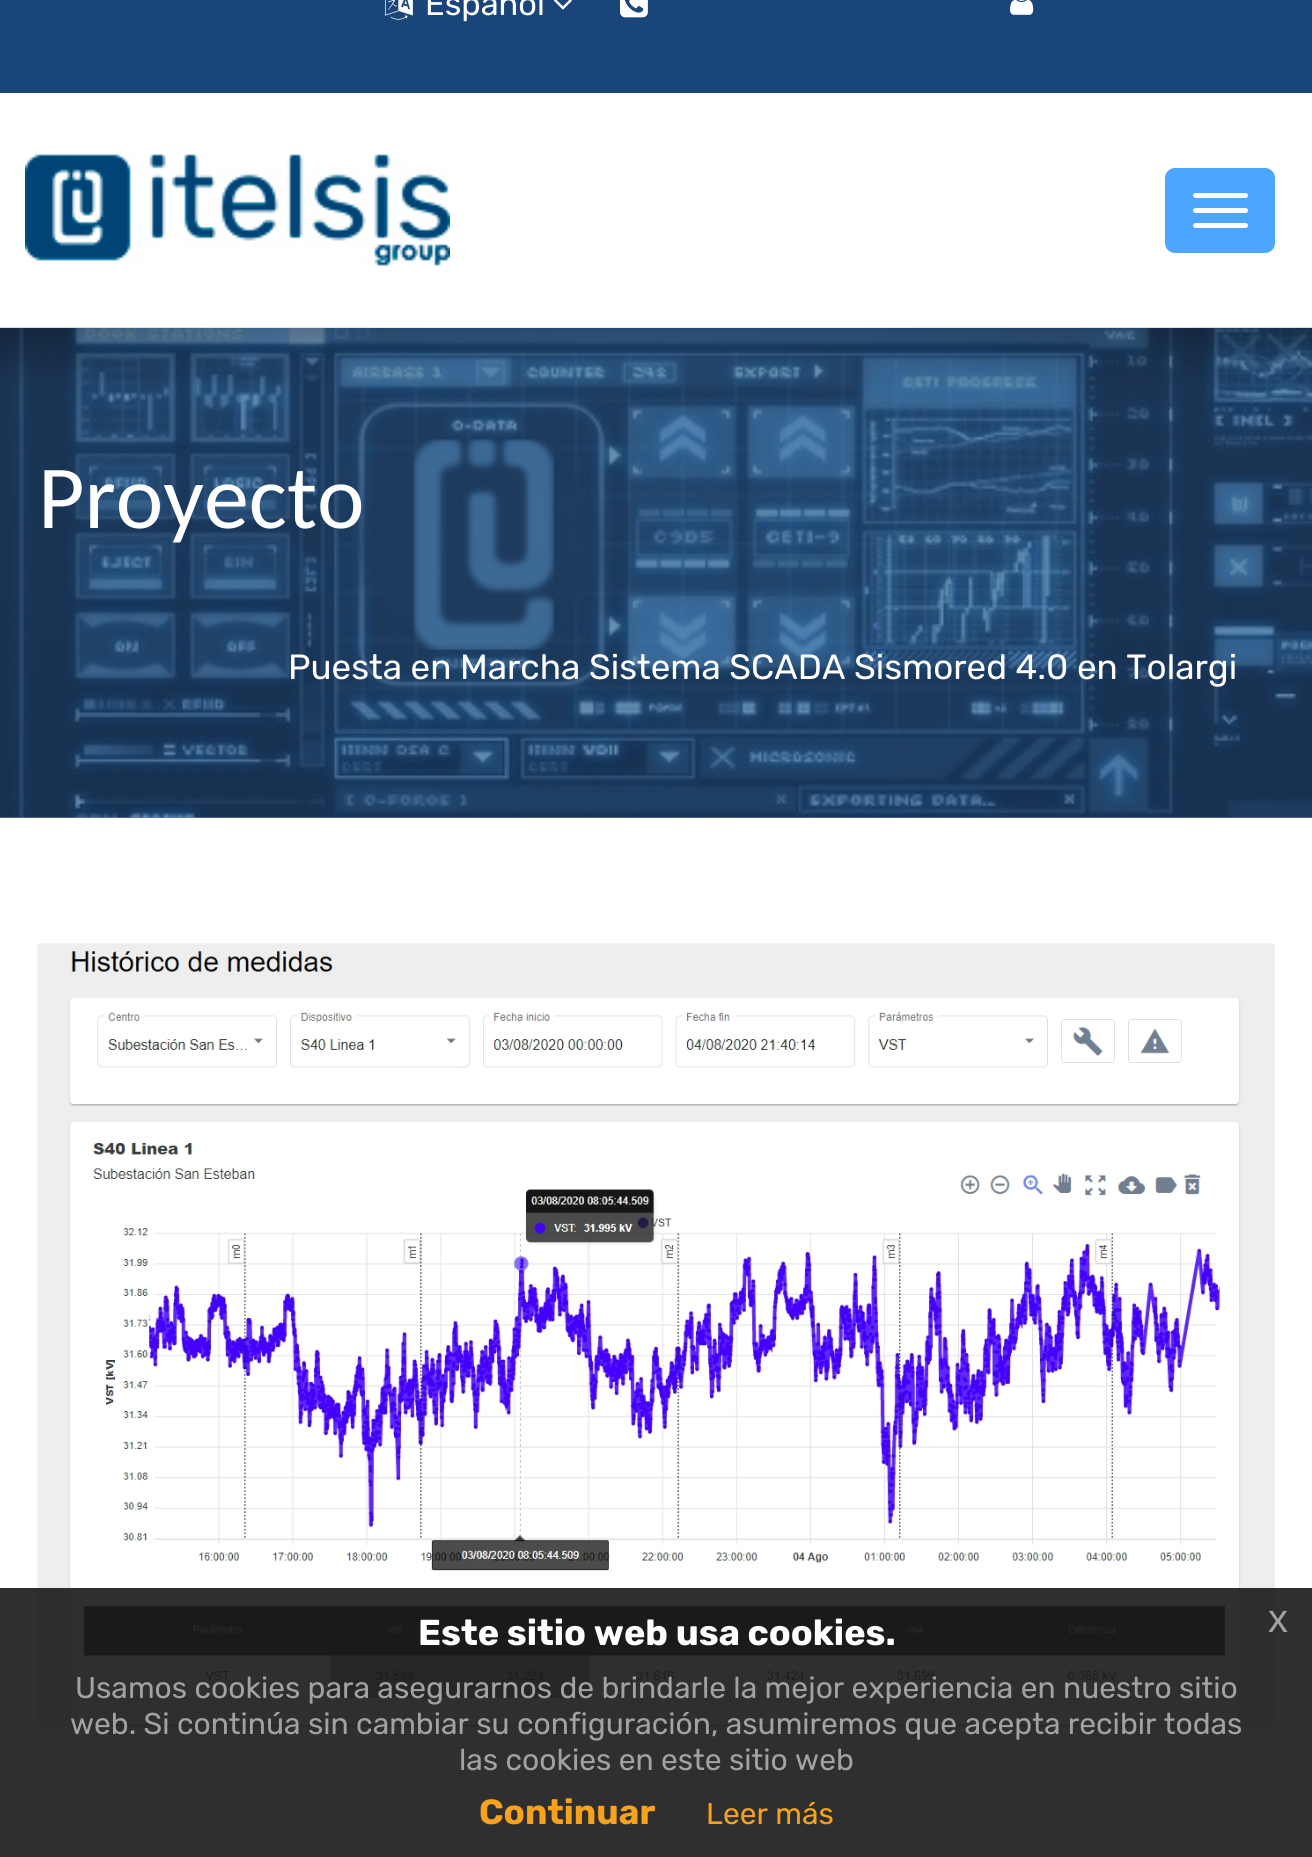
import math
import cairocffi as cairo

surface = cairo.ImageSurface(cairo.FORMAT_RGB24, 1312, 1857)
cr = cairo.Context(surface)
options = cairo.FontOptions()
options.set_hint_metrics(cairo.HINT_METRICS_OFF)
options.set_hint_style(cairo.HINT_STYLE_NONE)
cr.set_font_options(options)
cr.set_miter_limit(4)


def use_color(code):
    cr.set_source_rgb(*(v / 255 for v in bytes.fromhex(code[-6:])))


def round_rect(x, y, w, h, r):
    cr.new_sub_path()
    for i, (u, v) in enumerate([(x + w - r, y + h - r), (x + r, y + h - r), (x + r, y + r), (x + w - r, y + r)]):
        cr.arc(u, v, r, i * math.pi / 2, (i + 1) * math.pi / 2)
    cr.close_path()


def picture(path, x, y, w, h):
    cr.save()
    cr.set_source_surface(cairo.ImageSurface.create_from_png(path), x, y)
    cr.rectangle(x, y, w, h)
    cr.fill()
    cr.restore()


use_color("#ffffff")
cr.paint()
use_color("#768faf")
cr.rectangle(0, 817, 1312, 1)
cr.fill()
use_color("#1a457a")
cr.rectangle(0, 0, 1312, 93)
cr.fill()
picture("img1.png", 385, 0, 28, 20)
cr.select_font_face("Rubik")
cr.set_font_size(32.5)
use_color("#ffffff")
cr.move_to(425, 15)
cr.show_text("Español")
picture("img2.png", 553, 0, 19, 10)
picture("img3.png", 620, 0, 28, 18)
picture("img4.png", 1010, 0, 24, 15)
picture("img5.png", 25, 153, 425, 113)
use_color("#4ca6ff")
round_rect(1166.5, 169.5, 107, 82, 8.5)
cr.fill_preserve()
cr.set_line_width(3)
cr.stroke()
use_color("#ffffff")
round_rect(1193, 193, 55, 5, 2.5)
cr.fill()
round_rect(1193, 208, 55, 5, 2.5)
cr.fill()
round_rect(1193, 223, 55, 5, 2.5)
cr.fill()
picture("img7.png", 0, 328, 1312, 490)
picture("img6.png", 0, 327, 1312, 58)
cr.select_font_face("Carlito")
cr.set_font_size(90)
cr.move_to(38, 528)
cr.show_text("Proyecto")
cr.select_font_face("Rubik")
cr.set_font_size(35)
cr.move_to(288, 679)
cr.show_text("Puesta en Marcha Sistema SCADA Sismored 4.0 en Tolargi")
picture("img8.png", 37, 943, 1238, 785)
cr.set_source_rgba(0.098, 0.098, 0.098, 0.9)
cr.rectangle(0, 1588, 1312, 269)
cr.fill()
cr.select_font_face("Rubik", cairo.FONT_SLANT_NORMAL, cairo.FONT_WEIGHT_BOLD)
cr.set_font_size(36)
use_color("#ffffff")
cr.move_to(418, 1645)
cr.show_text("Este sitio web usa cookies.")
cr.select_font_face("Liberation Sans")
cr.set_font_size(40)
use_color("#a2a2a2")
cr.move_to(1268, 1632)
cr.show_text("x")
cr.select_font_face("Rubik")
cr.set_font_size(30)
cr.move_to(75, 1698)
cr.show_text("Usamos cookies para asegurarnos de brindarle la mejor experiencia en nuestro sitio")
cr.move_to(70, 1734)
cr.show_text("web. Si continúa sin cambiar su configuración, asumiremos que acepta recibir todas")
cr.move_to(459, 1770)
cr.show_text("las cookies en este sitio web")
cr.select_font_face("Rubik", cairo.FONT_SLANT_NORMAL, cairo.FONT_WEIGHT_BOLD)
cr.set_font_size(35)
use_color("#f6a21d")
cr.move_to(479, 1824)
cr.show_text("Continuar")
cr.select_font_face("Rubik")
cr.set_font_size(30)
cr.move_to(706, 1824)
cr.show_text("Leer más")
surface.write_to_png("result.png")
